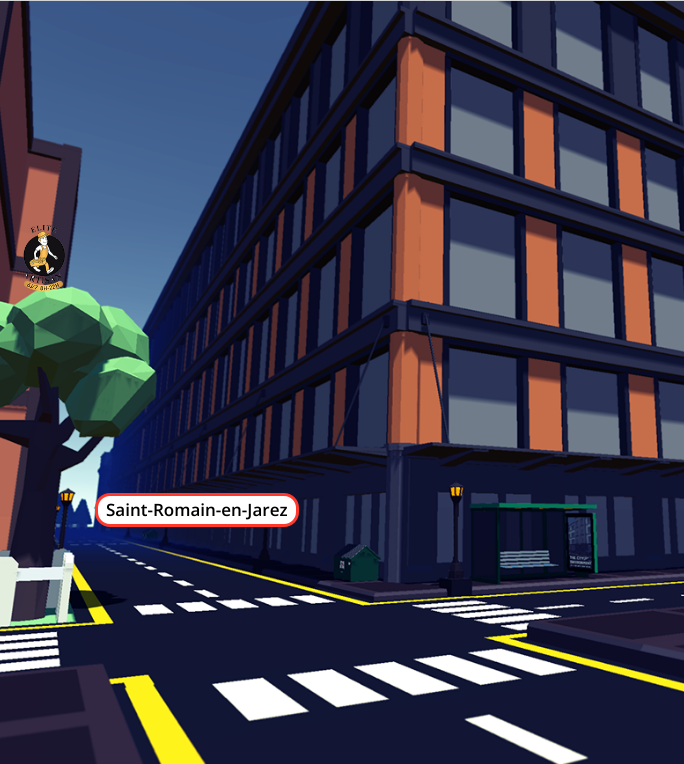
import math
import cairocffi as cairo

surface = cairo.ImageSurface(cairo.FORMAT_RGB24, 684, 764)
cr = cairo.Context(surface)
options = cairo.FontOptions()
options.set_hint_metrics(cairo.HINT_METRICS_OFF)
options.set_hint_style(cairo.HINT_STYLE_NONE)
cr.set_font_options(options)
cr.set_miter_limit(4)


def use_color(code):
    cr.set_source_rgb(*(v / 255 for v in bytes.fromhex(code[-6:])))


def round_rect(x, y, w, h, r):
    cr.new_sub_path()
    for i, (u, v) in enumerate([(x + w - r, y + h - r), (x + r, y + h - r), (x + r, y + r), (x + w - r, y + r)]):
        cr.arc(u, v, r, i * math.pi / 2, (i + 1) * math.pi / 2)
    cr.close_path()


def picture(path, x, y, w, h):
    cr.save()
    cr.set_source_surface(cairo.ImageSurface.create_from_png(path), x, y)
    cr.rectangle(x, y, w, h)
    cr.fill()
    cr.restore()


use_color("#d2d3d4")
cr.paint()
picture("img1.png", 0, 1, 684, 763)
picture("img2.png", 23, 225, 42, 66)
use_color("#ffffff")
round_rect(96.5, 494.5, 201, 31, 13.5)
cr.fill_preserve()
use_color("#ff3a2d")
cr.set_line_width(3)
cr.stroke()
cr.select_font_face("Open Sans SemiBold")
cr.set_font_size(17)
use_color("#000000")
cr.move_to(106, 516)
cr.show_text("Saint-Romain-en-Jarez")
surface.write_to_png("result.png")
